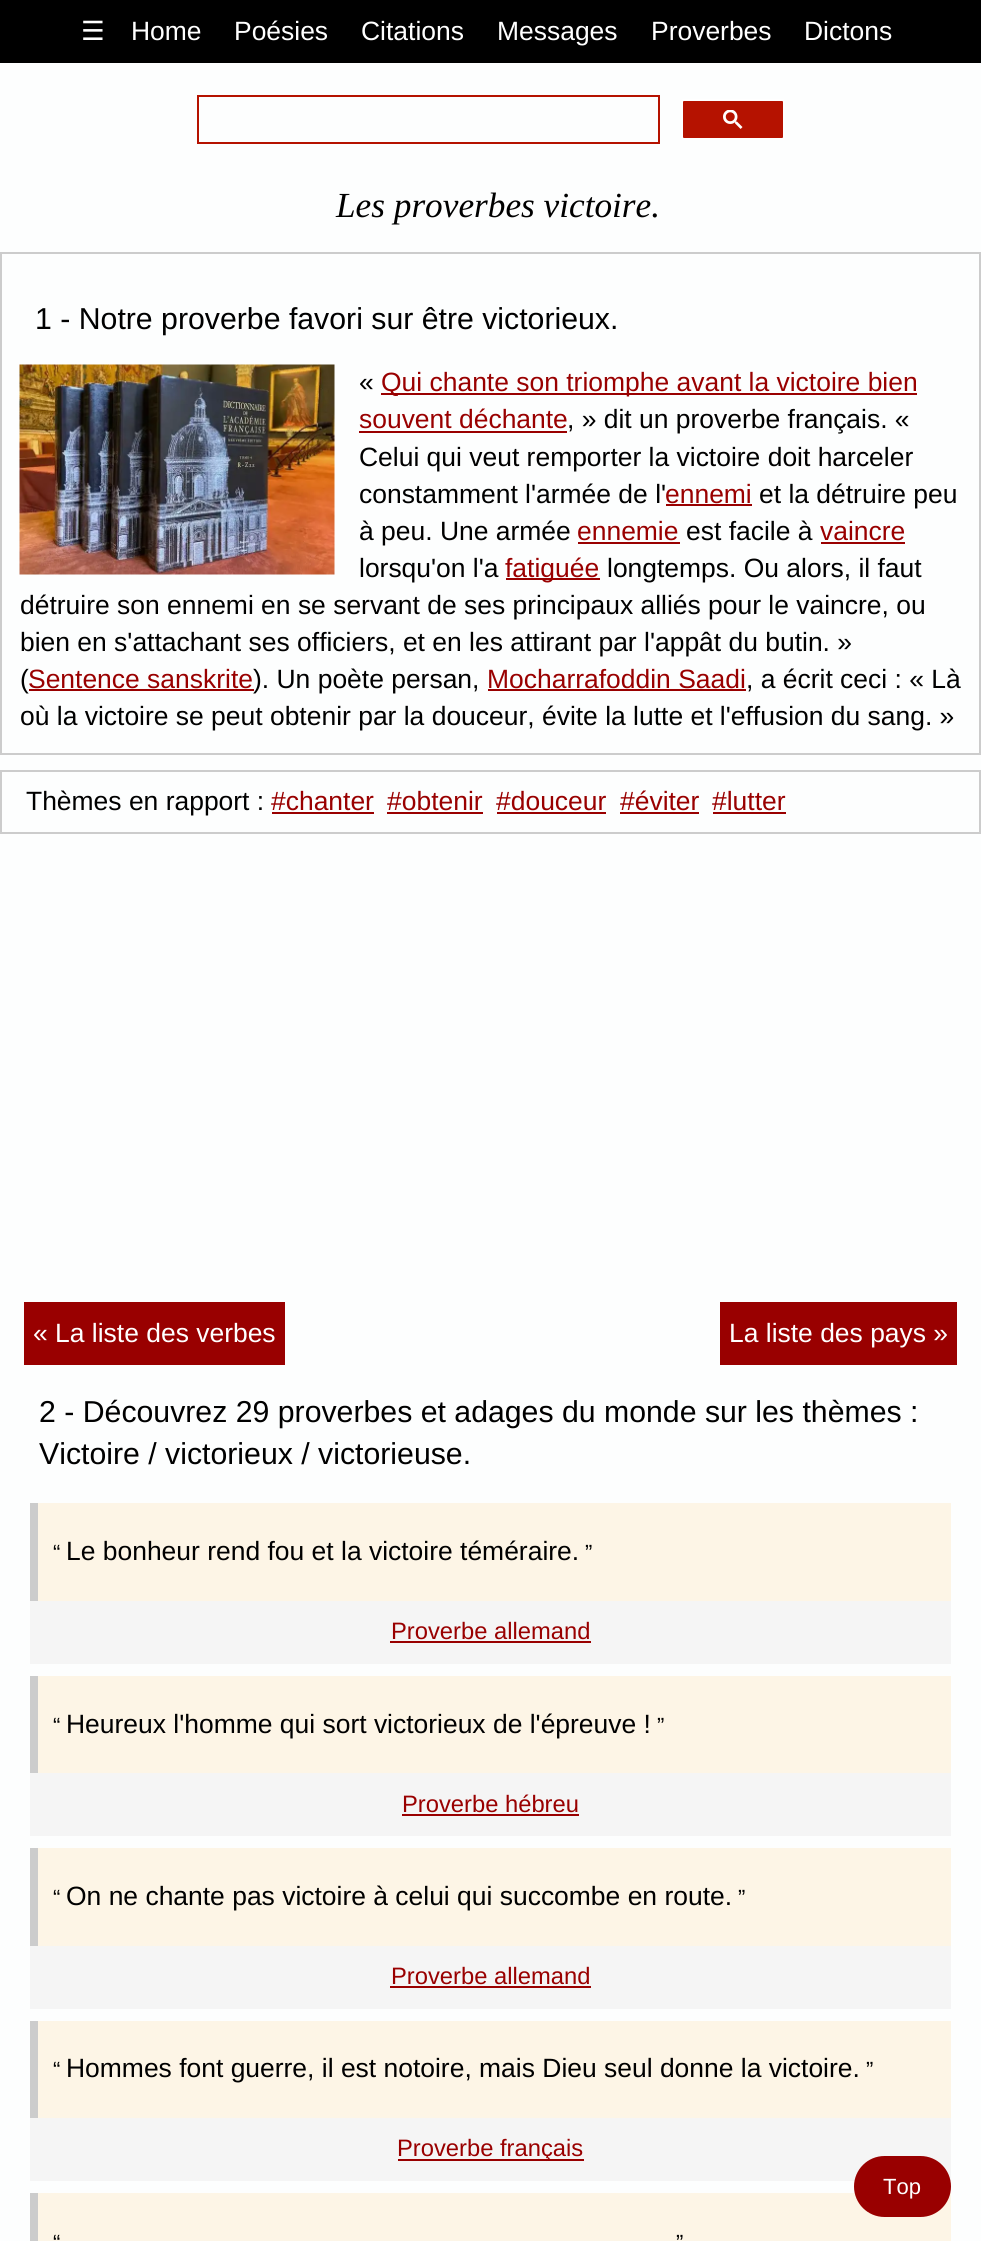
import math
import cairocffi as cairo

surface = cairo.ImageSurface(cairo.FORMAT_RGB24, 981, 2241)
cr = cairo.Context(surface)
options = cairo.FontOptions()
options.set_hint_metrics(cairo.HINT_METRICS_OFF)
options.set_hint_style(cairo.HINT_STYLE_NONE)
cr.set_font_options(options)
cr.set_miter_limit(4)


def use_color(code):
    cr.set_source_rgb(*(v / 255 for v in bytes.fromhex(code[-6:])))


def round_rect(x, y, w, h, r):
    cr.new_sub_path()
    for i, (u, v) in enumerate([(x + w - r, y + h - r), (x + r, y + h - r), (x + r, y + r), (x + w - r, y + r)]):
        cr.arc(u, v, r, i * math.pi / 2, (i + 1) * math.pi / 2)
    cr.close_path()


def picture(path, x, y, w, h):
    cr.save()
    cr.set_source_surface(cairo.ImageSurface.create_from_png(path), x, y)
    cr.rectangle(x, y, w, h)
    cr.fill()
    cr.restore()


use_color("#fdfefe")
cr.paint()
use_color("#000000")
cr.rectangle(0, 0, 981, 63)
cr.fill()
cr.select_font_face("DejaVu Sans")
cr.set_font_size(26.45)
use_color("#ffffff")
cr.move_to(81, 40)
cr.show_text("☰")
cr.select_font_face("Liberation Sans")
cr.move_to(131, 40)
cr.show_text("Home")
cr.move_to(234, 40)
cr.show_text("Poésies")
cr.move_to(361, 40)
cr.show_text("Citations")
cr.move_to(497, 40)
cr.show_text("Messages")
cr.move_to(651, 40)
cr.show_text("Proverbes")
cr.move_to(804, 40)
cr.show_text("Dictons")
cr.rectangle(198, 96, 461, 47)
use_color("#b51200")
cr.stroke()
round_rect(682, 100, 102, 39, 2)
cr.fill_preserve()
use_color("#ffffff")
cr.stroke()
picture("img1.png", 723, 110, 20, 19)
cr.select_font_face("Liberation Serif", cairo.FONT_SLANT_ITALIC)
cr.set_font_size(35.25)
use_color("#000000")
cr.move_to(336, 217)
cr.show_text("Les proverbes victoire.")
cr.rectangle(1, 253, 979, 501)
use_color("#cccccc")
cr.stroke()
cr.select_font_face("Liberation Sans")
cr.set_font_size(30.25)
use_color("#000000")
cr.move_to(35, 329)
cr.show_text("1 - Notre proverbe favori sur être victorieux.")
picture("img2.png", 19, 364, 316, 211)
cr.set_font_size(26.45)
cr.move_to(359, 391)
cr.show_text("«")
use_color("#990000")
cr.rectangle(381, 393, 536, 2)
cr.fill()
cr.move_to(381, 391)
cr.show_text("Qui chante son triomphe avant la victoire bien")
cr.move_to(359, 428)
cr.show_text("souvent déchante")
use_color("#000000")
cr.move_to(567, 428)
cr.show_text(", » dit un proverbe français. «")
use_color("#990000")
cr.rectangle(359, 431, 208, 2)
cr.fill()
use_color("#000000")
cr.move_to(359, 466)
cr.show_text("Celui qui veut remporter la victoire doit harceler")
cr.move_to(359, 503)
cr.show_text("constamment l'armée de l'")
use_color("#990000")
cr.move_to(665, 503)
cr.show_text("ennemi")
cr.rectangle(666, 504, 86, 2)
cr.fill()
use_color("#000000")
cr.move_to(759, 503)
cr.show_text("et la détruire peu")
cr.move_to(359, 540)
cr.show_text("à peu. Une armée")
use_color("#990000")
cr.move_to(577, 540)
cr.show_text("ennemie")
cr.rectangle(578, 542, 102, 2)
cr.fill()
use_color("#000000")
cr.move_to(686, 540)
cr.show_text("est facile à")
use_color("#990000")
cr.move_to(820, 540)
cr.show_text("vaincre")
cr.rectangle(821, 542, 84, 2)
cr.fill()
use_color("#000000")
cr.move_to(359, 577)
cr.show_text("lorsqu'on l'a")
use_color("#990000")
cr.rectangle(506, 578, 94, 2)
cr.fill()
cr.move_to(505, 577)
cr.show_text("fatiguée")
use_color("#000000")
cr.move_to(607, 577)
cr.show_text("longtemps. Ou alors, il faut")
cr.move_to(20, 614)
cr.show_text("détruire son ennemi en se servant de ses principaux alliés pour le vaincre, ou")
cr.move_to(20, 651)
cr.show_text("bien en s'attachant ses officiers, et en les attirant par l'appât du butin. »")
cr.move_to(20, 688)
cr.show_text("(")
use_color("#990000")
cr.move_to(28, 688)
cr.show_text("Sentence sanskrite")
cr.rectangle(29, 689, 225, 2)
cr.fill()
use_color("#000000")
cr.move_to(253, 688)
cr.show_text("). Un poète persan,")
use_color("#990000")
cr.move_to(487, 688)
cr.show_text("Mocharrafoddin Saadi")
cr.rectangle(488, 689, 258, 2)
cr.fill()
use_color("#000000")
cr.move_to(746, 688)
cr.show_text(", a écrit ceci : « Là")
cr.move_to(20, 725)
cr.show_text("où la victoire se peut obtenir par la douceur, évite la lutte et l'effusion du sang. »")
cr.rectangle(1, 771, 979, 62)
use_color("#cccccc")
cr.stroke()
use_color("#000000")
cr.move_to(26, 810)
cr.show_text("Thèmes en rapport :")
use_color("#990000")
cr.move_to(271, 810)
cr.show_text("#chanter")
cr.rectangle(272, 812, 102, 2)
cr.fill()
cr.move_to(387, 810)
cr.show_text("#obtenir")
cr.rectangle(387, 812, 96, 2)
cr.fill()
cr.move_to(496, 810)
cr.show_text("#douceur")
cr.rectangle(497, 812, 109, 2)
cr.fill()
cr.move_to(620, 810)
cr.show_text("#éviter")
cr.rectangle(620, 812, 79, 2)
cr.fill()
cr.move_to(712, 810)
cr.show_text("#lutter")
cr.rectangle(713, 812, 73, 2)
cr.fill()
cr.rectangle(24, 1302, 261, 63)
cr.fill()
use_color("#ffffff")
cr.move_to(33, 1342)
cr.show_text("« La liste des verbes")
use_color("#990000")
cr.rectangle(720, 1302, 237, 63)
cr.fill()
use_color("#ffffff")
cr.move_to(729, 1342)
cr.show_text("La liste des pays »")
cr.set_font_size(30.25)
use_color("#000000")
cr.move_to(39, 1422)
cr.show_text("2 - Découvrez 29 proverbes et adages du monde sur les thèmes :")
cr.move_to(39, 1464)
cr.show_text("Victoire / victorieux / victorieuse.")
use_color("#cccccc")
cr.rectangle(30, 1503, 8, 98)
cr.fill()
use_color("#fdf5e6")
cr.rectangle(38, 1503, 913, 98)
cr.fill()
cr.set_font_size(22)
use_color("#000000")
cr.move_to(53, 1560)
cr.show_text("“")
cr.set_font_size(26.45)
cr.move_to(66, 1560)
cr.show_text("Le bonheur rend fou et la victoire téméraire.")
cr.set_font_size(22)
cr.move_to(585, 1560)
cr.show_text("”")
use_color("#f5f5f5")
cr.rectangle(30, 1601, 921, 63)
cr.fill()
cr.set_font_size(23.75)
use_color("#990000")
cr.move_to(391, 1639)
cr.show_text("Proverbe allemand")
cr.rectangle(390, 1641, 201, 2)
cr.fill()
use_color("#cccccc")
cr.rectangle(30, 1676, 8, 97)
cr.fill()
use_color("#fdf5e6")
cr.rectangle(38, 1676, 913, 97)
cr.fill()
cr.set_font_size(22)
use_color("#000000")
cr.move_to(53, 1733)
cr.show_text("“")
cr.set_font_size(26.45)
cr.move_to(66, 1733)
cr.show_text("Heureux l'homme qui sort victorieux de l'épreuve !")
cr.set_font_size(22)
cr.move_to(657, 1733)
cr.show_text("”")
use_color("#f5f5f5")
cr.rectangle(30, 1773, 921, 63)
cr.fill()
cr.set_font_size(23.75)
use_color("#990000")
cr.move_to(402, 1812)
cr.show_text("Proverbe hébreu")
cr.rectangle(402, 1814, 177, 2)
cr.fill()
use_color("#cccccc")
cr.rectangle(30, 1848, 8, 98)
cr.fill()
use_color("#fdf5e6")
cr.rectangle(38, 1848, 913, 98)
cr.fill()
cr.set_font_size(22)
use_color("#000000")
cr.move_to(53, 1905)
cr.show_text("“")
cr.set_font_size(26.45)
cr.move_to(66, 1905)
cr.show_text("On ne chante pas victoire à celui qui succombe en route.")
cr.set_font_size(22)
cr.move_to(738, 1905)
cr.show_text("”")
use_color("#f5f5f5")
cr.rectangle(30, 1946, 921, 63)
cr.fill()
cr.set_font_size(23.75)
use_color("#990000")
cr.move_to(391, 1984)
cr.show_text("Proverbe allemand")
cr.rectangle(390, 1986, 201, 2)
cr.fill()
use_color("#cccccc")
cr.rectangle(30, 2021, 8, 97)
cr.fill()
use_color("#fdf5e6")
cr.rectangle(38, 2021, 913, 97)
cr.fill()
cr.set_font_size(22)
use_color("#000000")
cr.move_to(53, 2077)
cr.show_text("“")
cr.set_font_size(26.45)
cr.move_to(66, 2077)
cr.show_text("Hommes font guerre, il est notoire, mais Dieu seul donne la victoire.")
cr.set_font_size(22)
cr.move_to(866, 2077)
cr.show_text("”")
use_color("#f5f5f5")
cr.rectangle(30, 2118, 921, 63)
cr.fill()
use_color("#990000")
cr.rectangle(398, 2159, 186, 2)
cr.fill()
cr.set_font_size(23.75)
cr.move_to(397, 2156)
cr.show_text("Proverbe français")
use_color("#cccccc")
cr.rectangle(30, 2193, 8, 48)
cr.fill()
use_color("#fdf5e6")
cr.rectangle(38, 2193, 913, 48)
cr.fill()
cr.set_font_size(22)
use_color("#000000")
cr.move_to(53, 2250)
cr.show_text("“")
cr.move_to(676, 2250)
cr.show_text("”")
use_color("#990000")
round_rect(854, 2156, 97, 61, 30.5)
cr.fill()
use_color("#ffffff")
cr.move_to(883, 2194)
cr.show_text("Top")
surface.write_to_png("result.png")
